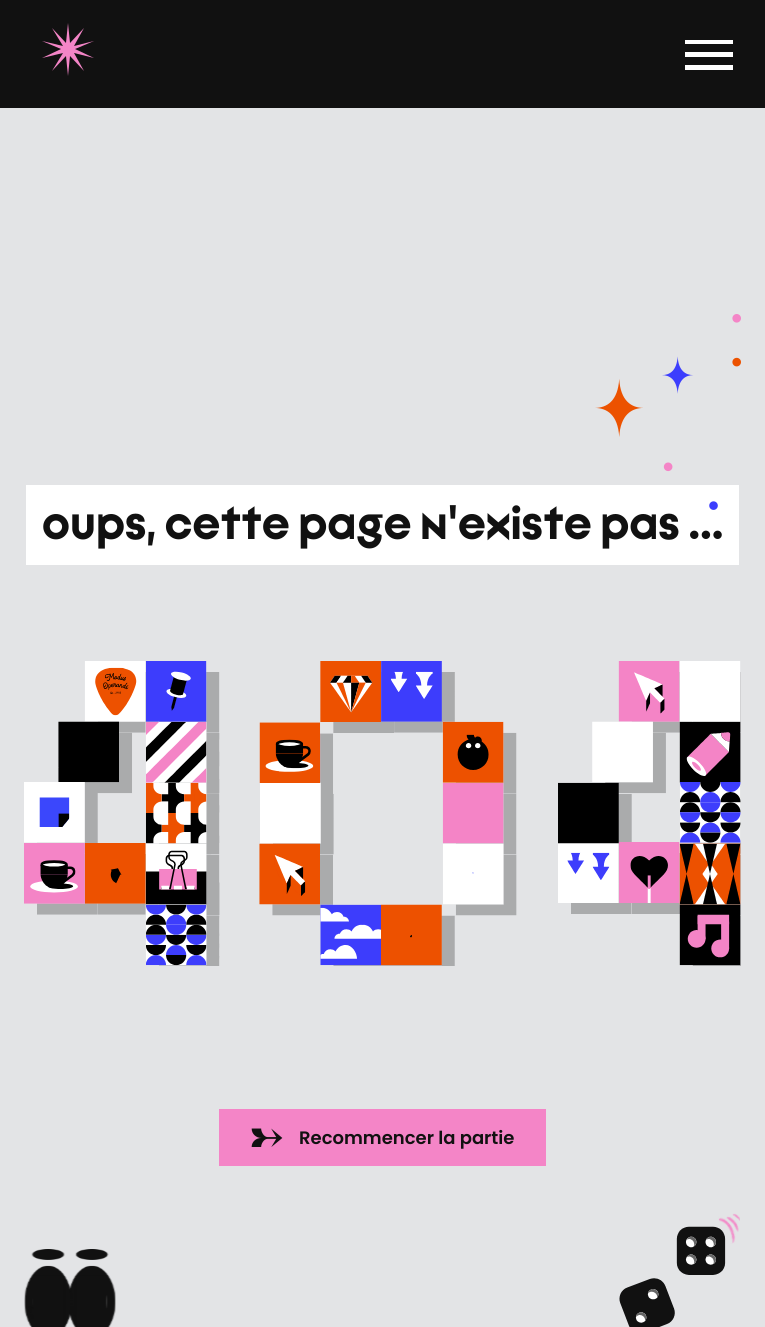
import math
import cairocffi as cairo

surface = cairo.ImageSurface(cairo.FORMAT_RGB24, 765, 1327)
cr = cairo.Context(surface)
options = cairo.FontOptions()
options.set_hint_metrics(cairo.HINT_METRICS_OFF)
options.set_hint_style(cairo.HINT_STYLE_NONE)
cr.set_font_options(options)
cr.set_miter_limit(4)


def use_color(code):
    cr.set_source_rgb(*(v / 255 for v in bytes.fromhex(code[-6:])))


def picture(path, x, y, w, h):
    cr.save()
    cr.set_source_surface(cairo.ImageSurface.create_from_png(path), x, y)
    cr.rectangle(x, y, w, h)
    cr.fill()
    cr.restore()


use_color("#e3e4e6")
cr.paint()
use_color("#111111")
cr.rectangle(0, 0, 765, 108)
cr.fill()
use_color("#f485c7")
cr.new_path()
cr.move_to(68, 23)
cr.line_to(70, 43)
cr.line_to(84, 28)
cr.line_to(74, 46)
cr.line_to(94, 41)
cr.line_to(75, 49)
cr.line_to(94, 58)
cr.line_to(74, 53)
cr.line_to(84, 71)
cr.line_to(70, 56)
cr.line_to(68, 76)
cr.line_to(66, 56)
cr.line_to(52, 71)
cr.line_to(63, 53)
cr.line_to(42, 58)
cr.line_to(61, 49)
cr.line_to(42, 41)
cr.line_to(63, 46)
cr.line_to(52, 28)
cr.line_to(66, 43)
cr.close_path()
cr.fill()
use_color("#ffffff")
cr.rectangle(685, 40, 48, 4)
cr.fill()
cr.rectangle(685, 52, 48, 5)
cr.fill()
cr.rectangle(685, 65, 48, 5)
cr.fill()
cr.rectangle(26, 485, 713, 80)
cr.fill()
picture("img2.png", 43, 505, 679, 44)
picture("img1.png", 595, 314, 146, 196)
picture("img3.png", 24, 661, 717, 305)
use_color("#f485c7")
cr.rectangle(219, 1109, 327, 57)
cr.fill()
picture("img4.png", 251, 1128, 32, 19)
cr.select_font_face("Poppins SemiBold")
cr.set_font_size(18)
use_color("#111111")
cr.move_to(299, 1144)
cr.show_text("Recommencer la partie")
picture("img5.png", 24, 1249, 92, 78)
picture("img6.png", 619, 1213, 121, 114)
surface.write_to_png("result.png")
